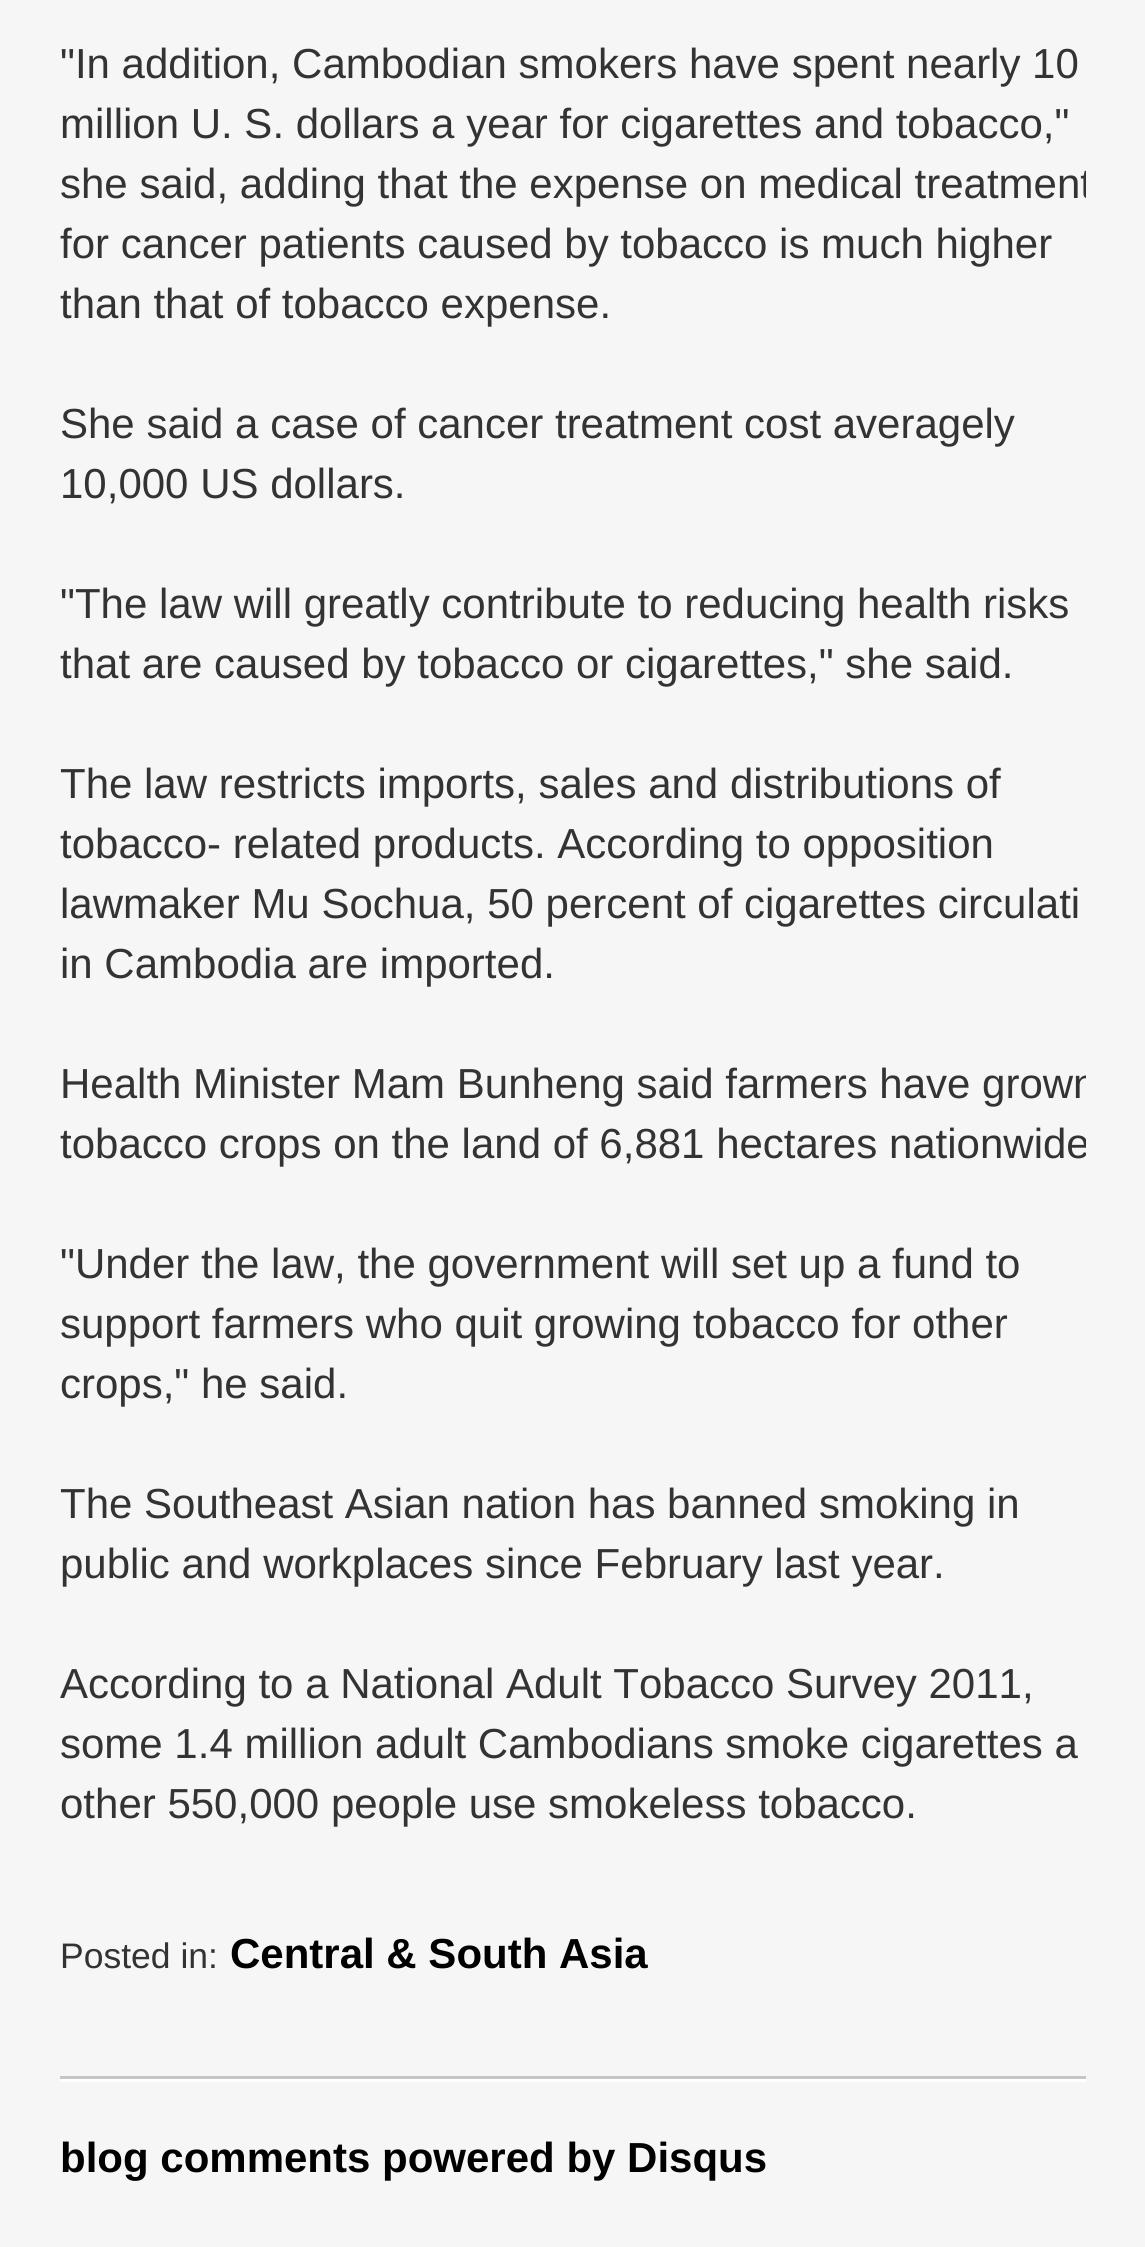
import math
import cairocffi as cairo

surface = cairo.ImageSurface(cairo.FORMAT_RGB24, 1145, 2247)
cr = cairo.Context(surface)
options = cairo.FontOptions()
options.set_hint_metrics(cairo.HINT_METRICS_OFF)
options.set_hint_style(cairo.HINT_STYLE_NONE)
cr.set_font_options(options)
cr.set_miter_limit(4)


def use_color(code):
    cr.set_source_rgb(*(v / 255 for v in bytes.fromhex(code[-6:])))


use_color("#f6f6f6")
cr.paint()
cr.select_font_face("Liberation Sans")
cr.set_font_size(42)
use_color("#333333")
cr.move_to(60, 78)
cr.show_text("\"In addition, Cambodian smokers have spent nearly 10")
cr.move_to(60, 138)
cr.show_text("million U. S. dollars a year for cigarettes and tobacco,\"")
cr.save()
cr.rectangle(60, 0, 1026, 2217)
cr.clip()
cr.move_to(60, 198)
cr.show_text("she said, adding that the expense on medical treatment")
cr.restore()
cr.move_to(60, 258)
cr.show_text("for cancer patients caused by tobacco is much higher")
cr.move_to(60, 318)
cr.show_text("than that of tobacco expense.")
cr.move_to(60, 438)
cr.show_text("She said a case of cancer treatment cost averagely")
cr.move_to(60, 498)
cr.show_text("10,000 US dollars.")
cr.move_to(60, 618)
cr.show_text("\"The law will greatly contribute to reducing health risks")
cr.move_to(60, 678)
cr.show_text("that are caused by tobacco or cigarettes,\" she said.")
cr.move_to(60, 798)
cr.show_text("The law restricts imports, sales and distributions of")
cr.move_to(60, 858)
cr.show_text("tobacco- related products. According to opposition")
cr.move_to(60, 918)
cr.show_text("lawmaker Mu Sochua, 50 percent of cigarettes circulati")
cr.move_to(60, 978)
cr.show_text("in Cambodia are imported.")
cr.save()
cr.rectangle(60, 0, 1026, 2217)
cr.clip()
cr.move_to(60, 1098)
cr.show_text("Health Minister Mam Bunheng said farmers have grown")
cr.move_to(60, 1158)
cr.show_text("tobacco crops on the land of 6,881 hectares nationwide")
cr.restore()
cr.move_to(60, 1278)
cr.show_text("\"Under the law, the government will set up a fund to")
cr.move_to(60, 1338)
cr.show_text("support farmers who quit growing tobacco for other")
cr.move_to(60, 1398)
cr.show_text("crops,\" he said.")
cr.move_to(60, 1518)
cr.show_text("The Southeast Asian nation has banned smoking in")
cr.move_to(60, 1578)
cr.show_text("public and workplaces since February last year.")
cr.move_to(60, 1698)
cr.show_text("According to a National Adult Tobacco Survey 2011,")
cr.move_to(60, 1758)
cr.show_text("some 1.4 million adult Cambodians smoke cigarettes a")
cr.move_to(60, 1818)
cr.show_text("other 550,000 people use smokeless tobacco.")
cr.set_font_size(35.5)
cr.move_to(60, 1968)
cr.show_text("Posted in:")
cr.select_font_face("Liberation Sans", cairo.FONT_SLANT_NORMAL, cairo.FONT_WEIGHT_BOLD)
cr.set_font_size(42)
use_color("#000000")
cr.move_to(230, 1968)
cr.show_text("Central & South Asia")
use_color("#c5c5c5")
cr.rectangle(60, 2076, 1026, 3)
cr.fill()
use_color("#ffffff")
cr.rectangle(60, 2079, 1026, 3)
cr.fill()
use_color("#000000")
cr.move_to(60, 2172)
cr.show_text("blog comments powered by Disqus")
surface.write_to_png("result.png")
